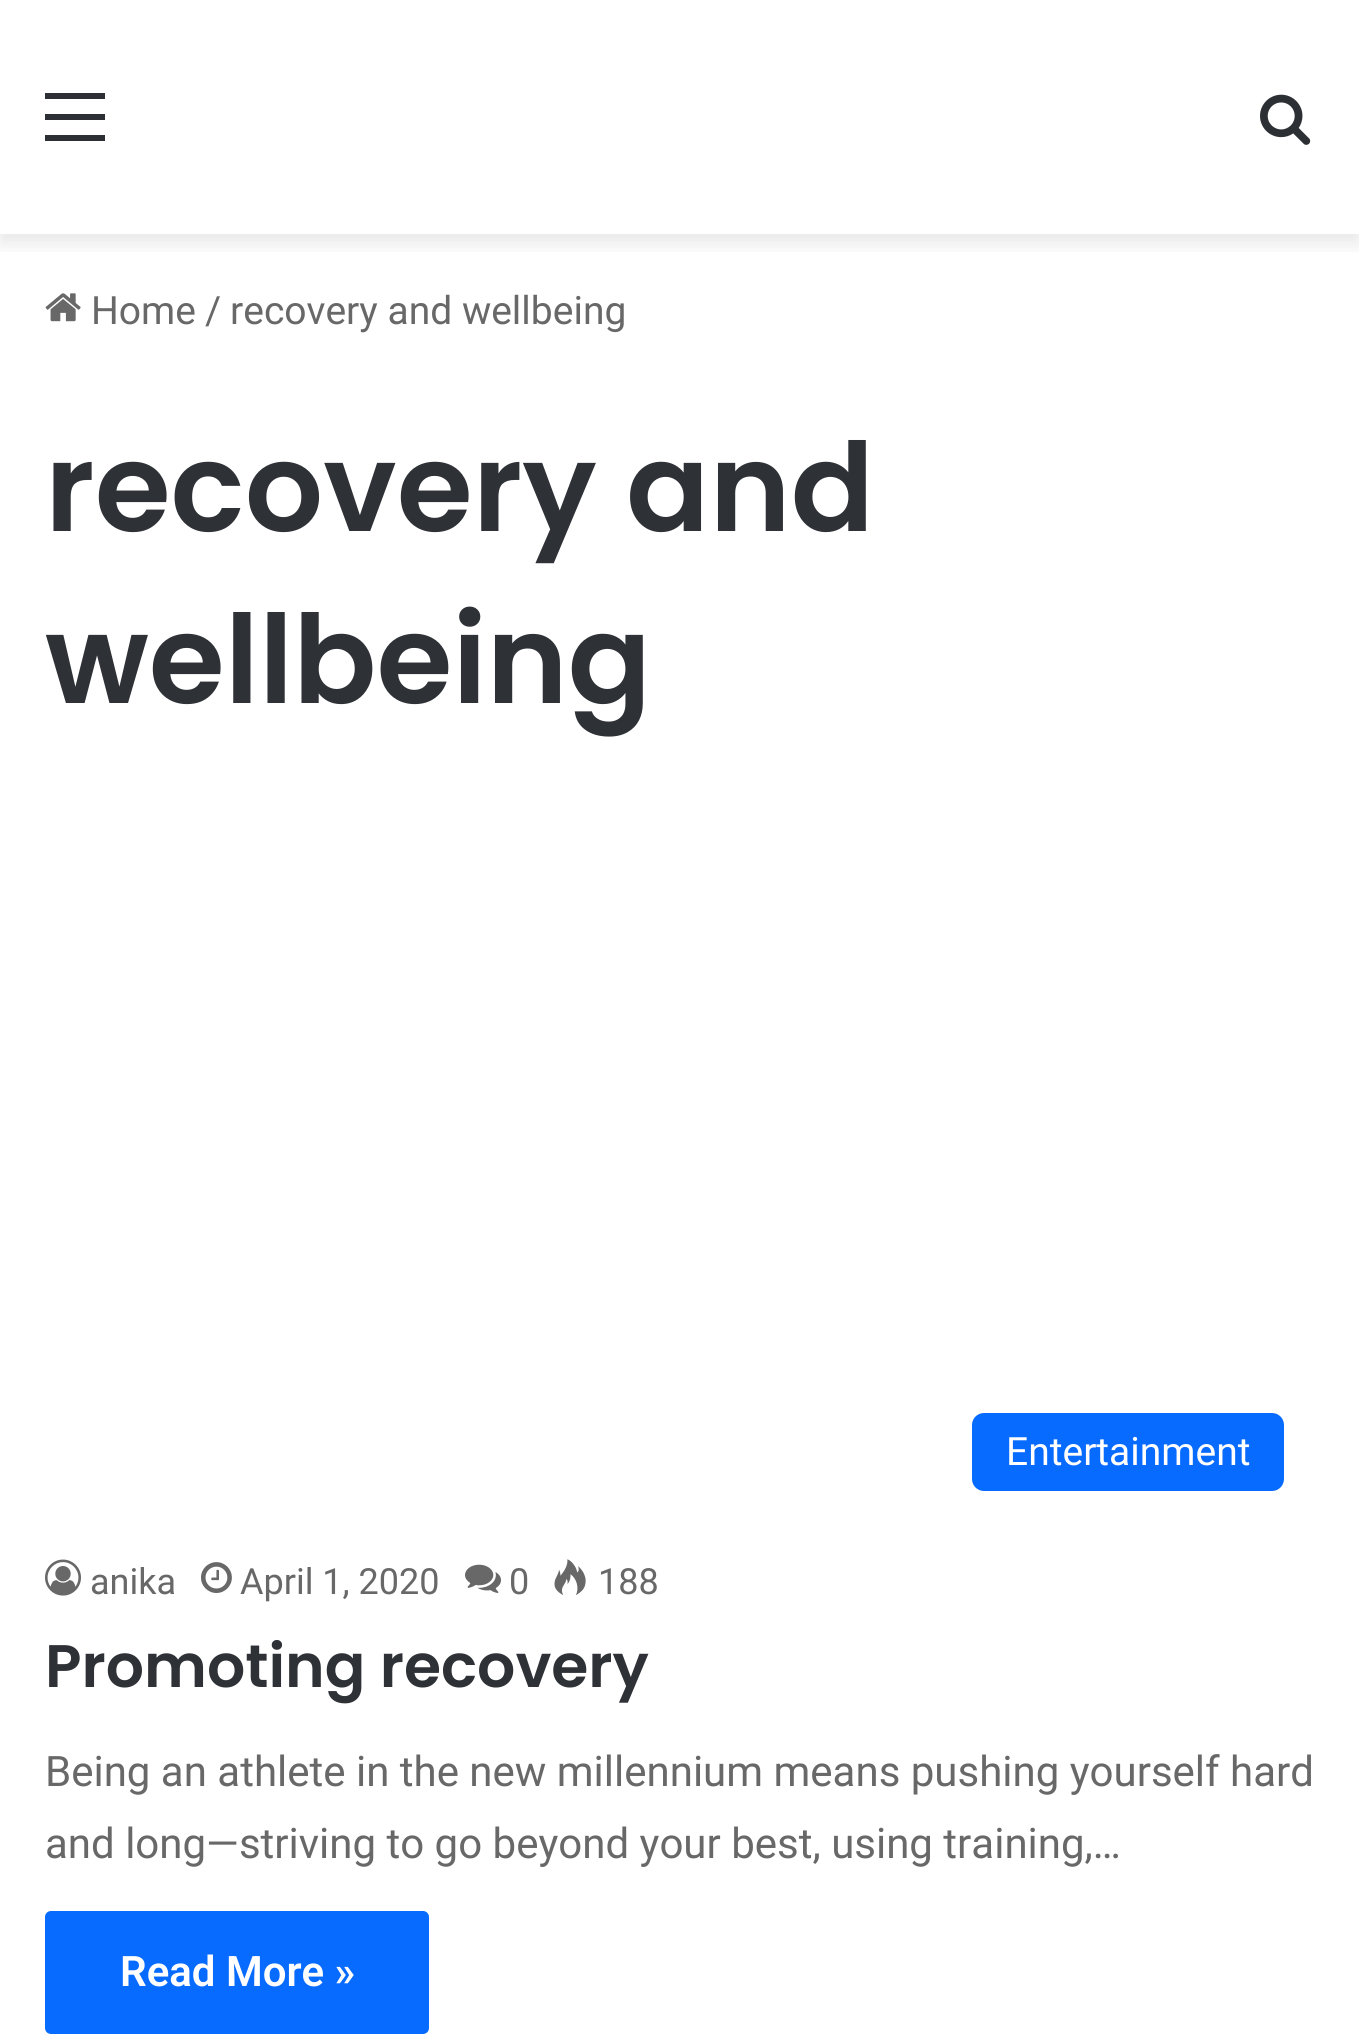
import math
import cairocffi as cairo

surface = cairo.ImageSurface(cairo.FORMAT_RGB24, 1359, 2035)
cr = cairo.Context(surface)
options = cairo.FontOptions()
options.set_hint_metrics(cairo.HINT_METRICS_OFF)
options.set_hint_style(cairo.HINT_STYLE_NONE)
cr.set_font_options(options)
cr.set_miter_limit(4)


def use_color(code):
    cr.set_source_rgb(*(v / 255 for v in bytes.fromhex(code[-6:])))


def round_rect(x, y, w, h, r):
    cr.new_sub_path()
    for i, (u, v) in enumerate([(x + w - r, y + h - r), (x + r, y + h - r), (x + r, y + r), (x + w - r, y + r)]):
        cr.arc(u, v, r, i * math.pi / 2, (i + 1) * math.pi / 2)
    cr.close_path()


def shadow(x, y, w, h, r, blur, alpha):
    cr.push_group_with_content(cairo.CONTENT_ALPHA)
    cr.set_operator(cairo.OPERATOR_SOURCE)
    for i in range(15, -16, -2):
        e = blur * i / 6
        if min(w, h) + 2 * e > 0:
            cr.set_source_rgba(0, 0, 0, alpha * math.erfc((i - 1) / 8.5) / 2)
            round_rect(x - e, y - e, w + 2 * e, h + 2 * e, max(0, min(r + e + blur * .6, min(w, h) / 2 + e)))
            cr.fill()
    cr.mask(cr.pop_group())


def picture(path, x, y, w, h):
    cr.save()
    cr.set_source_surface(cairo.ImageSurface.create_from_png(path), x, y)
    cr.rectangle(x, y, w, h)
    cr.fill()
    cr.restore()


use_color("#ffffff")
cr.paint()
cr.save()
cr.rectangle(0, 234, 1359, 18)
cr.clip()
use_color("#000000")
shadow(0, 9, 1359, 234, 0, 10.5, 0.1)
cr.restore()
use_color("#2c2f34")
cr.rectangle(45, 114, 60, 6)
cr.fill()
cr.rectangle(45, 93, 60, 6)
cr.fill()
cr.rectangle(45, 135, 60, 6)
cr.fill()
picture("img1.png", 1260, 94, 51, 51)
picture("img2.png", 45, 293, 36, 29)
cr.select_font_face("Roboto")
cr.set_font_size(39)
use_color("#686868")
cr.move_to(91, 324)
cr.show_text("Home")
cr.move_to(205, 324)
cr.show_text("/")
cr.move_to(230, 324)
cr.show_text("recovery and wellbeing")
cr.select_font_face("Poppins SemiBold")
cr.set_font_size(123)
use_color("#2e3136")
cr.move_to(45, 531)
cr.show_text("recovery and")
cr.move_to(45, 703)
cr.show_text("wellbeing")
use_color("#086bff")
round_rect(972, 1413, 312, 78, 12)
cr.fill()
cr.select_font_face("Roboto")
cr.set_font_size(39)
use_color("#ffffff")
cr.move_to(1006, 1465)
cr.show_text("Entertainment")
picture("img3.png", 45, 1559, 36, 37)
cr.set_font_size(36)
use_color("#686868")
cr.move_to(90, 1594)
cr.show_text("anika")
picture("img4.png", 201, 1562, 31, 31)
cr.move_to(240, 1594)
cr.show_text("April 1, 2020")
picture("img5.png", 465, 1564, 36, 29)
cr.move_to(509, 1594)
cr.show_text("0")
picture("img6.png", 554, 1559, 32, 37)
cr.move_to(598, 1594)
cr.show_text("188")
cr.select_font_face("Poppins SemiBold")
cr.set_font_size(60)
use_color("#2e3136")
cr.move_to(45, 1687)
cr.show_text("Promoting recovery")
cr.select_font_face("Roboto")
cr.set_font_size(42)
use_color("#686868")
cr.move_to(45, 1786)
cr.show_text("Being an athlete in the new millennium means pushing yourself hard")
cr.move_to(45, 1858)
cr.show_text("and long—striving to go beyond your best, using training,…")
use_color("#086bff")
round_rect(45, 1911, 384, 123, 6)
cr.fill()
cr.select_font_face("Roboto SemiBold")
use_color("#ffffff")
cr.move_to(120, 1986)
cr.show_text("Read More »")
surface.write_to_png("result.png")
